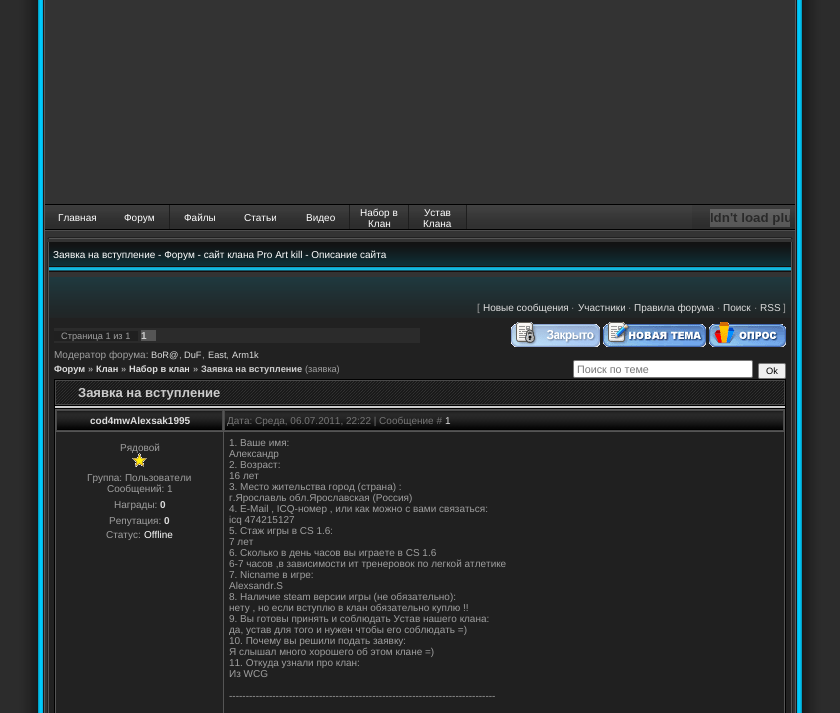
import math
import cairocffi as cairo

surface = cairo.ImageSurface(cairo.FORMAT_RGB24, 840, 713)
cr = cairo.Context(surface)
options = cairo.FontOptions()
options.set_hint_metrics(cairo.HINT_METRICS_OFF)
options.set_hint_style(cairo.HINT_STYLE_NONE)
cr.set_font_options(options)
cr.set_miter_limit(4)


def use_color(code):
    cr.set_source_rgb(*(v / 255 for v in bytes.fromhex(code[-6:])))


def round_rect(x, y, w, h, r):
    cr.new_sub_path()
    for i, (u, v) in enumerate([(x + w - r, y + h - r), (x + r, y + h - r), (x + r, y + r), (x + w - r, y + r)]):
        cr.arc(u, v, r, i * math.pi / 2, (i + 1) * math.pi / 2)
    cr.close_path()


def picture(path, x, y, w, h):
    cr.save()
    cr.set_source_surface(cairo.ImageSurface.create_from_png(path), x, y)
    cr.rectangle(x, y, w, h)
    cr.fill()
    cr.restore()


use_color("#ffffff")
cr.paint()
picture("img1.png", 0, 0, 45, 713)
use_color("#333333")
cr.rectangle(45, 0, 750, 713)
cr.fill()
picture("img2.png", 45, 204, 65, 27)
cr.select_font_face("Liberation Sans")
cr.set_font_size(10)
use_color("#ffffff")
cr.move_to(58, 221)
cr.show_text("Главная")
picture("img3.png", 110, 204, 59, 27)
cr.move_to(124, 221)
cr.show_text("Форум")
picture("img4.png", 169, 204, 1, 27)
picture("img5.png", 170, 204, 60, 27)
cr.move_to(184, 221)
cr.show_text("Файлы")
picture("img6.png", 230, 204, 61, 27)
cr.move_to(244, 221)
cr.show_text("Статьи")
picture("img7.png", 291, 204, 58, 27)
cr.move_to(306, 221)
cr.show_text("Видео")
picture("img4.png", 349, 204, 1, 27)
picture("img7.png", 350, 204, 58, 27)
cr.move_to(360, 216)
cr.show_text("Набор в")
cr.move_to(368, 227)
cr.show_text("Клан")
picture("img4.png", 408, 204, 1, 27)
picture("img8.png", 409, 204, 57, 27)
cr.move_to(424, 216)
cr.show_text("Устав")
cr.move_to(423, 227)
cr.show_text("Клана")
picture("img4.png", 466, 204, 1, 27)
picture("img9.png", 467, 204, 225, 27)
picture("img10.png", 692, 204, 103, 27)
picture("img11.png", 710, 209, 80, 18)
picture("img12.png", 47, 237, 2, 2)
picture("img13.png", 49, 237, 742, 2)
picture("img14.png", 791, 237, 2, 2)
picture("img15.png", 47, 242, 2, 24)
picture("img16.png", 49, 242, 742, 24)
cr.move_to(53, 258)
cr.show_text("Заявка на вступление - Форум - сайт клана Pro Art kill - Описание сайта")
picture("img17.png", 791, 242, 2, 24)
picture("img18.png", 47, 266, 2, 11)
picture("img19.png", 49, 266, 742, 6)
picture("img20.png", 791, 266, 2, 11)
picture("img21.png", 47, 277, 2, 436)
use_color("#212121")
cr.rectangle(49, 318, 742, 395)
cr.fill()
picture("img22.png", 49, 277, 742, 41)
use_color("#9f9f9f")
cr.move_to(477, 311)
cr.show_text("[")
use_color("#dedede")
cr.move_to(483, 311)
cr.show_text("Новые сообщения")
use_color("#9f9f9f")
cr.move_to(571, 311)
cr.show_text("·")
use_color("#dedede")
cr.move_to(578, 311)
cr.show_text("Участники")
use_color("#9f9f9f")
cr.move_to(628, 311)
cr.show_text("·")
use_color("#dedede")
cr.move_to(634, 311)
cr.show_text("Правила форума")
use_color("#9f9f9f")
cr.move_to(717, 311)
cr.show_text("·")
use_color("#dedede")
cr.move_to(723, 311)
cr.show_text("Поиск")
use_color("#9f9f9f")
cr.move_to(754, 311)
cr.show_text("·")
use_color("#dedede")
cr.move_to(760, 311)
cr.show_text("RSS")
use_color("#9f9f9f")
cr.move_to(783, 311)
cr.show_text("]")
use_color("#2b2b2b")
cr.rectangle(54, 328, 366, 15)
cr.fill()
use_color("#202020")
cr.rectangle(54, 331, 84, 10)
cr.fill()
cr.set_font_size(9.25)
use_color("#9f9f9f")
cr.move_to(61, 339)
cr.show_text("Страница 1 из 1")
use_color("#555555")
cr.rectangle(141, 330, 15, 11)
cr.fill()
cr.select_font_face("Liberation Sans", cairo.FONT_SLANT_NORMAL, cairo.FONT_WEIGHT_BOLD)
cr.set_font_size(10)
use_color("#cccccc")
cr.move_to(141, 339)
cr.show_text("1")
picture("img23.png", 511, 322, 89, 25)
picture("img24.png", 603, 322, 103, 25)
picture("img25.png", 709, 322, 77, 25)
cr.select_font_face("Liberation Sans")
use_color("#9f9f9f")
cr.move_to(54, 358)
cr.show_text("Модератор форума:")
cr.set_font_size(9.25)
use_color("#dedede")
cr.move_to(151, 358)
cr.show_text("BoR@")
cr.set_font_size(10)
use_color("#9f9f9f")
cr.move_to(179, 358)
cr.show_text(",")
cr.set_font_size(9.25)
use_color("#dedede")
cr.move_to(184, 358)
cr.show_text("DuF")
cr.set_font_size(10)
use_color("#9f9f9f")
cr.move_to(202, 358)
cr.show_text(",")
cr.set_font_size(9.25)
use_color("#dedede")
cr.move_to(208, 358)
cr.show_text("East")
cr.set_font_size(10)
use_color("#9f9f9f")
cr.move_to(226, 358)
cr.show_text(",")
cr.set_font_size(9.25)
use_color("#dedede")
cr.move_to(232, 358)
cr.show_text("Arm1k")
cr.select_font_face("Liberation Sans", cairo.FONT_SLANT_NORMAL, cairo.FONT_WEIGHT_BOLD)
cr.move_to(54, 372)
cr.show_text("Форум")
use_color("#9f9f9f")
cr.move_to(88, 372)
cr.show_text("»")
use_color("#dedede")
cr.move_to(96, 372)
cr.show_text("Клан")
use_color("#9f9f9f")
cr.move_to(121, 372)
cr.show_text("»")
use_color("#dedede")
cr.move_to(129, 372)
cr.show_text("Набор в клан")
use_color("#9f9f9f")
cr.move_to(193, 372)
cr.show_text("»")
use_color("#cccccc")
cr.move_to(201, 372)
cr.show_text("Заявка на вступление")
cr.select_font_face("Liberation Sans")
use_color("#9f9f9f")
cr.move_to(305, 372)
cr.show_text("(заявка)")
use_color("#ffffff")
round_rect(573.5, 360.5, 179, 17, 1.5)
cr.fill_preserve()
use_color("#767676")
cr.set_line_width(1)
cr.stroke()
cr.set_font_size(10.75)
use_color("#757575")
cr.move_to(577, 373)
cr.show_text("Поиск по теме")
use_color("#efefef")
round_rect(758.5, 363.5, 27, 15, 1.5)
cr.fill_preserve()
use_color("#767676")
cr.stroke()
cr.set_font_size(9.25)
use_color("#000000")
cr.move_to(766, 374)
cr.show_text("Ok")
cr.rectangle(54, 379, 732, 334)
cr.fill()
picture("img26.png", 56, 381, 728, 23)
cr.rectangle(55.5, 380.5, 729, 24)
use_color("#494949")
cr.stroke()
cr.select_font_face("Liberation Sans", cairo.FONT_SLANT_NORMAL, cairo.FONT_WEIGHT_BOLD)
cr.set_font_size(13)
use_color("#cccccc")
cr.move_to(78, 397)
cr.show_text("Заявка на вступление")
cr.rectangle(55, 406, 730, 2)
cr.fill()
use_color("#555555")
cr.rectangle(55, 409, 730, 304)
cr.fill()
use_color("#000000")
cr.rectangle(57, 429, 165, 1)
cr.fill()
picture("img27.png", 57, 411, 165, 18)
cr.rectangle(56.5, 410.5, 166, 20)
use_color("#494949")
cr.stroke()
cr.set_font_size(10)
use_color("#dedede")
cr.move_to(90, 424)
cr.show_text("cod4mwAlexsak1995")
use_color("#000000")
cr.rectangle(225, 429, 558, 1)
cr.fill()
picture("img28.png", 225, 411, 558, 18)
cr.rectangle(224.5, 410.5, 559, 20)
use_color("#494949")
cr.stroke()
cr.select_font_face("Liberation Sans")
use_color("#757575")
cr.move_to(227, 424)
cr.show_text("Дата: Среда, 06.07.2011, 22:22 | Сообщение #")
use_color("#dedede")
cr.move_to(445, 424)
cr.show_text("1")
use_color("#222222")
cr.rectangle(56, 432, 167, 281)
cr.fill()
use_color("#9f9f9f")
cr.move_to(120, 451)
cr.show_text("Рядовой")
picture("img29.png", 132, 453, 15, 14)
cr.move_to(87, 481)
cr.show_text("Группа: Пользователи")
cr.move_to(107, 492)
cr.show_text("Сообщений: 1")
cr.move_to(114, 508)
cr.show_text("Награды:")
cr.select_font_face("Liberation Sans", cairo.FONT_SLANT_NORMAL, cairo.FONT_WEIGHT_BOLD)
use_color("#dedede")
cr.move_to(160, 508)
cr.show_text("0")
cr.select_font_face("Liberation Sans")
use_color("#9f9f9f")
cr.move_to(109, 524)
cr.show_text("Репутация:")
cr.select_font_face("Liberation Sans", cairo.FONT_SLANT_NORMAL, cairo.FONT_WEIGHT_BOLD)
use_color("#dedede")
cr.move_to(164, 524)
cr.show_text("0")
cr.select_font_face("Liberation Sans")
use_color("#9f9f9f")
cr.move_to(106, 538)
cr.show_text("Статус:")
use_color("#ffffff")
cr.move_to(144, 538)
cr.show_text("Offline")
use_color("#202020")
cr.rectangle(224, 432, 560, 281)
cr.fill()
use_color("#9f9f9f")
cr.move_to(229, 446)
cr.show_text("1. Ваше имя:")
cr.move_to(229, 457)
cr.show_text("Александр")
cr.move_to(229, 468)
cr.show_text("2. Возраст:")
cr.move_to(229, 479)
cr.show_text("16 лет")
cr.move_to(229, 490)
cr.show_text("3. Место жительства город (страна) :")
cr.move_to(229, 501)
cr.show_text("г.Ярославль обл.Ярославская (Россия)")
cr.move_to(229, 512)
cr.show_text("4. E-Mail , ICQ-номер , или как можно с вами связаться:")
cr.move_to(229, 523)
cr.show_text("icq 474215127")
cr.move_to(229, 534)
cr.show_text("5. Стаж игры в CS 1.6:")
cr.move_to(229, 545)
cr.show_text("7 лет")
cr.move_to(229, 556)
cr.show_text("6. Сколько в день часов вы играете в CS 1.6")
cr.move_to(229, 567)
cr.show_text("6-7 часов ,в зависимости ит тренеровок по легкой атлетике")
cr.move_to(229, 578)
cr.show_text("7. Nicname в игре:")
cr.move_to(229, 589)
cr.show_text("Alexsandr.S")
cr.move_to(229, 600)
cr.show_text("8. Наличие steam версии игры (не обязательно):")
cr.move_to(229, 611)
cr.show_text("нету , но если вступлю в клан обязательно куплю !!")
cr.move_to(229, 622)
cr.show_text("9. Вы готовы принять и соблюдать Устав нашего клана:")
cr.move_to(229, 633)
cr.show_text("да, устав для того и нужен чтобы его соблюдать =)")
cr.move_to(229, 644)
cr.show_text("10. Почему вы решили подать заявку:")
cr.move_to(229, 655)
cr.show_text("Я слышал много хорошего об этом клане =)")
cr.move_to(229, 666)
cr.show_text("11. Откуда узнали про клан:")
cr.move_to(229, 677)
cr.show_text("Из WCG")
cr.move_to(229, 699)
cr.show_text("--------------------------------------------------------------------------------")
picture("img30.png", 791, 277, 2, 436)
picture("img31.png", 795, 0, 45, 713)
surface.write_to_png("result.png")
